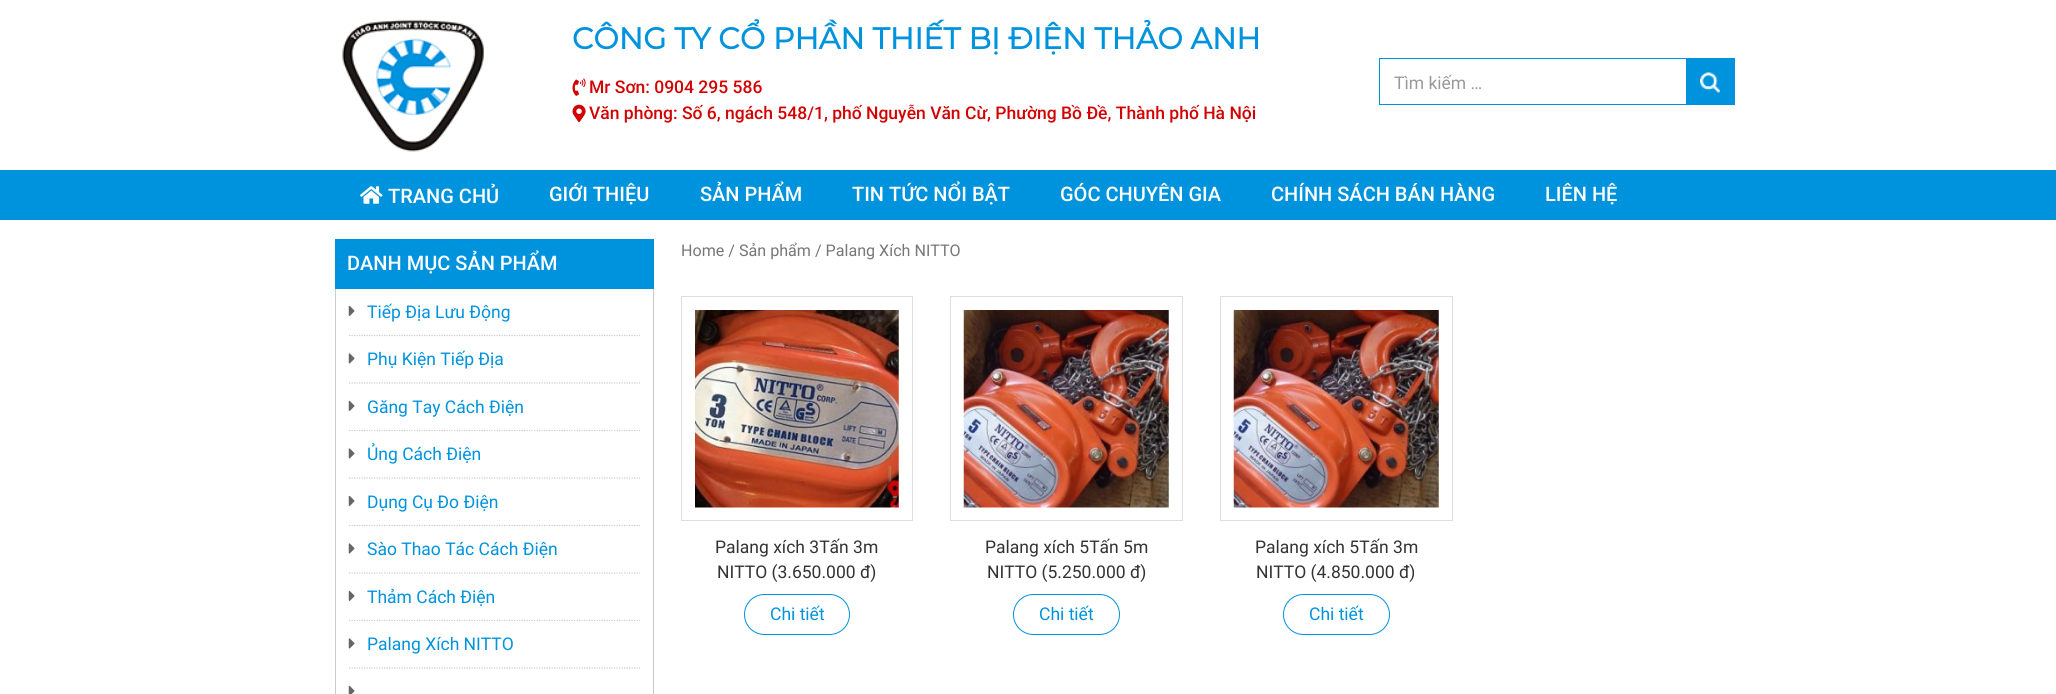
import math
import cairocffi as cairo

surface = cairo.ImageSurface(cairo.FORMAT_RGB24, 2056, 694)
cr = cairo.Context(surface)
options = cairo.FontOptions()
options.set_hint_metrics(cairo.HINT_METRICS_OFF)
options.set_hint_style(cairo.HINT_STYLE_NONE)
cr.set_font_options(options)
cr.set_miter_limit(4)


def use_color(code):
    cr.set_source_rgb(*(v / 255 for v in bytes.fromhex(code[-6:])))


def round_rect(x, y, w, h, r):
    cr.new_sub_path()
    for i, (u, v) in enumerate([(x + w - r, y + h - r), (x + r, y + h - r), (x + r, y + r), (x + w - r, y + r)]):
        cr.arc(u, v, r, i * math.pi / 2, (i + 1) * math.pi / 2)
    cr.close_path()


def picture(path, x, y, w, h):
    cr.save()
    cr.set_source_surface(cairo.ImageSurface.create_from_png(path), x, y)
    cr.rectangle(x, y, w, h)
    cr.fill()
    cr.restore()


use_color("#ffffff")
cr.paint()
picture("img1.png", 342, 19, 142, 133)
cr.select_font_face("Montserrat", cairo.FONT_SLANT_NORMAL, cairo.FONT_WEIGHT_BOLD)
cr.set_font_size(30)
use_color("#0093dd")
cr.move_to(572, 49)
cr.show_text("CÔNG TY CỔ PHẦN THIẾT BỊ ĐIỆN THẢO ANH")
picture("img2.png", 572, 78, 14, 18)
cr.select_font_face("Roboto Medium")
cr.set_font_size(17.5)
use_color("#d30202")
cr.move_to(589, 93)
cr.show_text("Mr Sơn: 0904 295 586")
picture("img3.png", 572, 104, 14, 19)
cr.move_to(589, 119)
cr.show_text("Văn phòng: Số 6, ngách 548/1, phố Nguyễn Văn Cừ, Phường Bồ Đề, Thành phố Hà Nội")
cr.rectangle(1379.5, 58.5, 355, 46)
use_color("#0093dd")
cr.set_line_width(1)
cr.stroke()
cr.select_font_face("Roboto")
use_color("#999999")
cr.move_to(1394, 89)
cr.show_text("Tìm kiếm …")
use_color("#0093dd")
cr.rectangle(1686, 59, 48, 45)
cr.fill()
picture("img4.png", 1700, 72, 20, 21)
cr.rectangle(0, 170, 2056, 50)
cr.fill()
picture("img5.png", 360, 186, 23, 18)
cr.select_font_face("Roboto Medium")
cr.set_font_size(20)
use_color("#ffffff")
cr.move_to(388, 203)
cr.show_text("TRANG CHỦ")
cr.move_to(549, 201)
cr.show_text("GIỚI THIỆU")
cr.move_to(700, 201)
cr.show_text("SẢN PHẨM")
cr.move_to(852, 201)
cr.show_text("TIN TỨC NỔI BẬT")
cr.move_to(1060, 201)
cr.show_text("GÓC CHUYÊN GIA")
cr.move_to(1271, 201)
cr.show_text("CHÍNH SÁCH BÁN HÀNG")
cr.move_to(1545, 201)
cr.show_text("LIÊN HỆ")
use_color("#0093dd")
cr.rectangle(335, 239, 319, 50)
cr.fill()
use_color("#ffffff")
cr.move_to(347, 270)
cr.show_text("DANH MỤC SẢN PHẨM")
use_color("#cccccc")
cr.rectangle(653, 289, 1, 405)
cr.fill()
cr.rectangle(335, 289, 1, 405)
cr.fill()
cr.new_path()
cr.move_to(349, 335.5)
cr.line_to(640, 335.5)
cr.set_line_width(1.2)
cr.set_dash([1.25, 1.25])
cr.stroke()
picture("img6.png", 348, 305, 7, 11)
cr.select_font_face("Roboto")
cr.set_font_size(17.5)
use_color("#0093dd")
cr.move_to(367, 318)
cr.show_text("Tiếp Địa Lưu Động")
cr.new_path()
cr.move_to(349, 383)
cr.line_to(640, 383)
use_color("#cccccc")
cr.stroke()
picture("img7.png", 348, 353, 7, 11)
use_color("#0093dd")
cr.move_to(367, 365)
cr.show_text("Phụ Kiện Tiếp Địa")
cr.new_path()
cr.move_to(349, 430.5)
cr.line_to(640, 430.5)
use_color("#cccccc")
cr.stroke()
picture("img6.png", 348, 400, 7, 11)
use_color("#0093dd")
cr.move_to(367, 413)
cr.show_text("Găng Tay Cách Điện")
cr.new_path()
cr.move_to(349, 478)
cr.line_to(640, 478)
use_color("#cccccc")
cr.stroke()
picture("img7.png", 348, 448, 7, 11)
use_color("#0093dd")
cr.move_to(367, 460)
cr.show_text("Ủng Cách Điện")
cr.new_path()
cr.move_to(349, 525.5)
cr.line_to(640, 525.5)
use_color("#cccccc")
cr.stroke()
picture("img6.png", 348, 495, 7, 11)
use_color("#0093dd")
cr.move_to(367, 508)
cr.show_text("Dụng Cụ Đo Điện")
cr.new_path()
cr.move_to(349, 573)
cr.line_to(640, 573)
use_color("#cccccc")
cr.stroke()
picture("img7.png", 348, 543, 7, 11)
use_color("#0093dd")
cr.move_to(367, 555)
cr.show_text("Sào Thao Tác Cách Điện")
cr.new_path()
cr.move_to(349, 620.5)
cr.line_to(640, 620.5)
use_color("#cccccc")
cr.stroke()
picture("img6.png", 348, 590, 7, 11)
use_color("#0093dd")
cr.move_to(367, 603)
cr.show_text("Thảm Cách Điện")
cr.new_path()
cr.move_to(349, 668)
cr.line_to(640, 668)
use_color("#cccccc")
cr.stroke()
picture("img7.png", 348, 638, 7, 11)
use_color("#0093dd")
cr.move_to(367, 650)
cr.show_text("Palang Xích NITTO")
picture("img8.png", 348, 685, 7, 9)
cr.set_font_size(16.1)
use_color("#777777")
cr.move_to(681, 256)
cr.show_text("Home / Sản phẩm / Palang Xích NITTO")
cr.rectangle(681.5, 296.5, 231, 224)
use_color("#dedede")
cr.set_line_width(1)
cr.set_dash([])
cr.stroke()
picture("img9.png", 695, 310, 204, 198)
cr.set_font_size(17.5)
use_color("#333333")
cr.move_to(715, 553)
cr.show_text("Palang xích 3Tấn 3m")
cr.move_to(717, 578)
cr.show_text("NITTO (3.650.000 đ)")
round_rect(744.5, 594.5, 105, 40, 20)
use_color("#0093dd")
cr.stroke()
cr.move_to(770, 620)
cr.show_text("Chi tiết")
cr.rectangle(950.5, 296.5, 232, 224)
use_color("#dedede")
cr.stroke()
picture("img10.png", 963, 310, 206, 198)
use_color("#333333")
cr.move_to(985, 553)
cr.show_text("Palang xích 5Tấn 5m")
cr.move_to(987, 578)
cr.show_text("NITTO (5.250.000 đ)")
round_rect(1013.5, 594.5, 106, 40, 20)
use_color("#0093dd")
cr.stroke()
cr.move_to(1039, 620)
cr.show_text("Chi tiết")
cr.rectangle(1220.5, 296.5, 232, 224)
use_color("#dedede")
cr.stroke()
picture("img11.png", 1233, 310, 206, 198)
use_color("#333333")
cr.move_to(1255, 553)
cr.show_text("Palang xích 5Tấn 3m")
cr.move_to(1256, 578)
cr.show_text("NITTO (4.850.000 đ)")
round_rect(1283.5, 594.5, 106, 40, 20)
use_color("#0093dd")
cr.stroke()
cr.move_to(1309, 620)
cr.show_text("Chi tiết")
surface.write_to_png("result.png")
